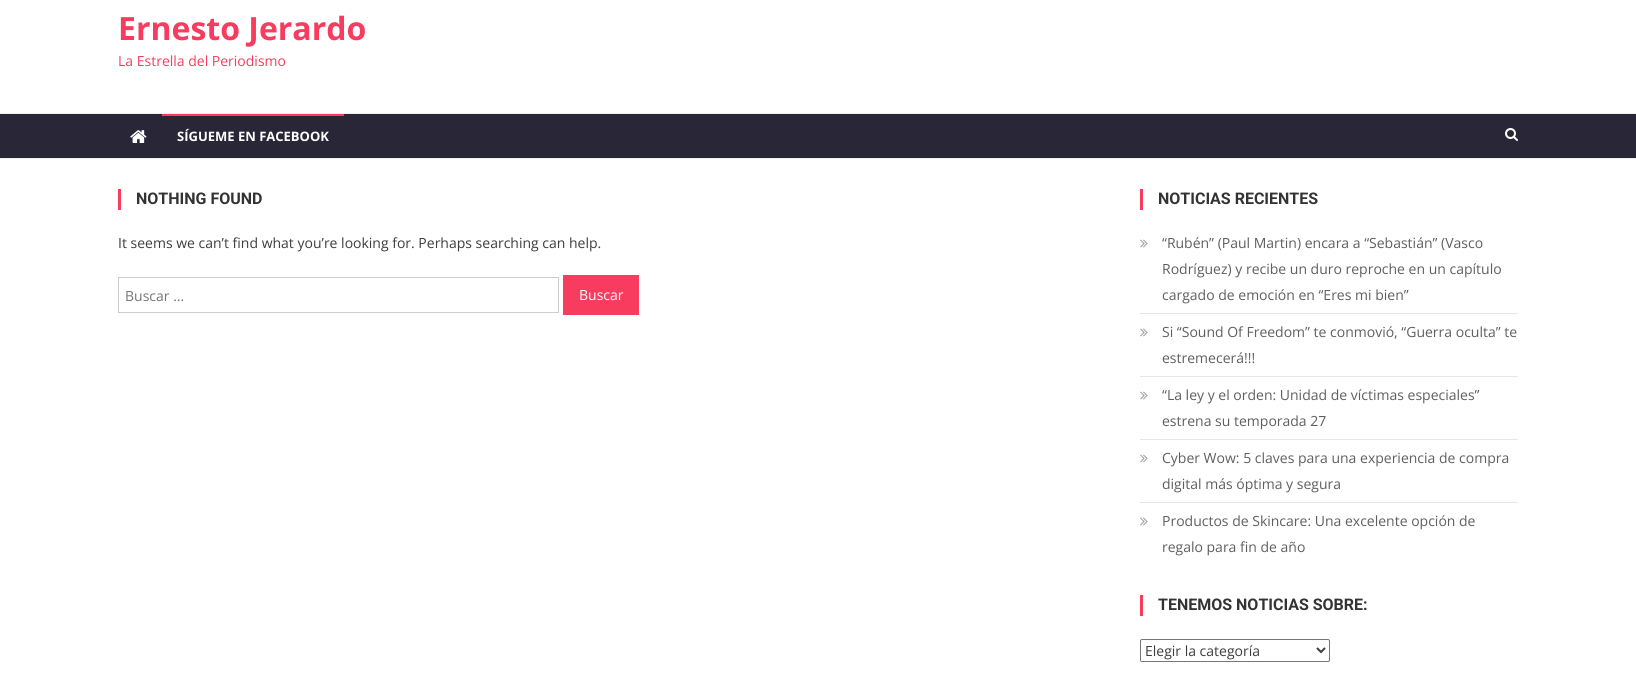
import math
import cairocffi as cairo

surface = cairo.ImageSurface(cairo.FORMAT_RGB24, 1636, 687)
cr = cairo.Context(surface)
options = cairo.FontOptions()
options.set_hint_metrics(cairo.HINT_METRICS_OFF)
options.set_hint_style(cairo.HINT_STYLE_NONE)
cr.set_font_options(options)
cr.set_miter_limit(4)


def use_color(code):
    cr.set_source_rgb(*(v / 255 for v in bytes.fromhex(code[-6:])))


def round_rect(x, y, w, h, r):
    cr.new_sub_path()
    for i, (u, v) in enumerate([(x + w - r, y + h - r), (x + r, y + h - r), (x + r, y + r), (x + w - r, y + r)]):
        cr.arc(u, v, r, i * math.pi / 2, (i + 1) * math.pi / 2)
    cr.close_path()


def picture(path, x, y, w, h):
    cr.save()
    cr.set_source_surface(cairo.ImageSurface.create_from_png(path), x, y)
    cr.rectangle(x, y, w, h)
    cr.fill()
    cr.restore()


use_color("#ffffff")
cr.paint()
cr.select_font_face("Open Sans", cairo.FONT_SLANT_NORMAL, cairo.FONT_WEIGHT_BOLD)
cr.set_font_size(32)
use_color("#f83c5f")
cr.move_to(118, 40)
cr.show_text("Ernesto Jerardo")
cr.select_font_face("Open Sans")
cr.set_font_size(14)
cr.move_to(118, 66)
cr.show_text("La Estrella del Periodismo")
use_color("#292637")
cr.rectangle(0, 114, 1636, 44)
cr.fill()
use_color("#eeeeee")
cr.rectangle(0, 113, 1636, 1)
cr.fill()
cr.rectangle(0, 158, 1636, 1)
cr.fill()
picture("img1.png", 130, 130, 17, 13)
use_color("#f83c5f")
cr.rectangle(162, 114, 182, 2)
cr.fill()
cr.select_font_face("Open Sans", cairo.FONT_SLANT_NORMAL, cairo.FONT_WEIGHT_BOLD)
cr.set_font_size(13)
use_color("#ffffff")
cr.move_to(177, 141)
cr.show_text("SÍGUEME EN FACEBOOK")
picture("img2.png", 1505, 128, 13, 13)
use_color("#f83c5f")
cr.rectangle(118, 189, 3, 21)
cr.fill()
cr.select_font_face("Roboto", cairo.FONT_SLANT_NORMAL, cairo.FONT_WEIGHT_BOLD)
cr.set_font_size(16)
use_color("#333333")
cr.move_to(136, 204)
cr.show_text("NOTHING FOUND")
cr.select_font_face("Open Sans")
cr.set_font_size(14)
use_color("#3d3d3d")
cr.move_to(118, 248)
cr.show_text("It seems we can’t find what you’re looking for. Perhaps searching can help.")
cr.rectangle(118.5, 277.5, 440, 35)
use_color("#cccccc")
cr.set_line_width(1)
cr.stroke()
use_color("#757575")
cr.move_to(125, 301)
cr.show_text("Buscar …")
use_color("#f83c5f")
cr.rectangle(563, 275, 76, 40)
cr.fill()
use_color("#ffffff")
cr.move_to(579, 300)
cr.show_text("Buscar")
use_color("#f83c5f")
cr.rectangle(1140, 189, 3, 21)
cr.fill()
cr.select_font_face("Roboto", cairo.FONT_SLANT_NORMAL, cairo.FONT_WEIGHT_BOLD)
cr.set_font_size(16)
use_color("#333333")
cr.move_to(1158, 204)
cr.show_text("NOTICIAS RECIENTES")
use_color("#e6e6e6")
cr.rectangle(1140, 313, 378, 1)
cr.fill()
picture("img3.png", 1140, 239, 8, 9)
cr.select_font_face("Open Sans")
cr.set_font_size(14)
use_color("#5f5f5f")
cr.move_to(1162, 248)
cr.show_text("“Rubén” (Paul Martin) encara a “Sebastián” (Vasco")
cr.move_to(1162, 274)
cr.show_text("Rodríguez) y recibe un duro reproche en un capítulo")
cr.move_to(1162, 300)
cr.show_text("cargado de emoción en “Eres mi bien”")
use_color("#e6e6e6")
cr.rectangle(1140, 376, 378, 1)
cr.fill()
picture("img3.png", 1140, 328, 8, 9)
use_color("#5f5f5f")
cr.move_to(1162, 337)
cr.show_text("Si “Sound Of Freedom” te conmovió, “Guerra oculta” te")
cr.move_to(1162, 363)
cr.show_text("estremecerá!!!")
use_color("#e6e6e6")
cr.rectangle(1140, 439, 378, 1)
cr.fill()
picture("img3.png", 1140, 391, 8, 9)
use_color("#5f5f5f")
cr.move_to(1162, 400)
cr.show_text("“La ley y el orden: Unidad de víctimas especiales”")
cr.move_to(1162, 426)
cr.show_text("estrena su temporada 27")
use_color("#e6e6e6")
cr.rectangle(1140, 502, 378, 1)
cr.fill()
picture("img3.png", 1140, 454, 8, 9)
use_color("#5f5f5f")
cr.move_to(1162, 463)
cr.show_text("Cyber Wow: 5 claves para una experiencia de compra")
cr.move_to(1162, 489)
cr.show_text("digital más óptima y segura")
picture("img3.png", 1140, 517, 8, 9)
cr.move_to(1162, 526)
cr.show_text("Productos de Skincare: Una excelente opción de")
cr.move_to(1162, 552)
cr.show_text("regalo para fin de año")
use_color("#f83c5f")
cr.rectangle(1140, 595, 3, 21)
cr.fill()
cr.select_font_face("Roboto", cairo.FONT_SLANT_NORMAL, cairo.FONT_WEIGHT_BOLD)
cr.set_font_size(16)
use_color("#333333")
cr.move_to(1158, 610)
cr.show_text("TENEMOS NOTICIAS SOBRE:")
round_rect(1140.5, 639.5, 189, 22, 1.5)
use_color("#767676")
cr.stroke()
cr.new_path()
cr.move_to(1317, 648)
cr.line_to(1321, 652)
cr.line_to(1325, 648)
use_color("#3d3d3d")
cr.set_line_width(2)
cr.stroke()
cr.select_font_face("Open Sans")
cr.set_font_size(14)
cr.move_to(1145, 656)
cr.show_text("Elegir la categoría")
surface.write_to_png("result.png")
